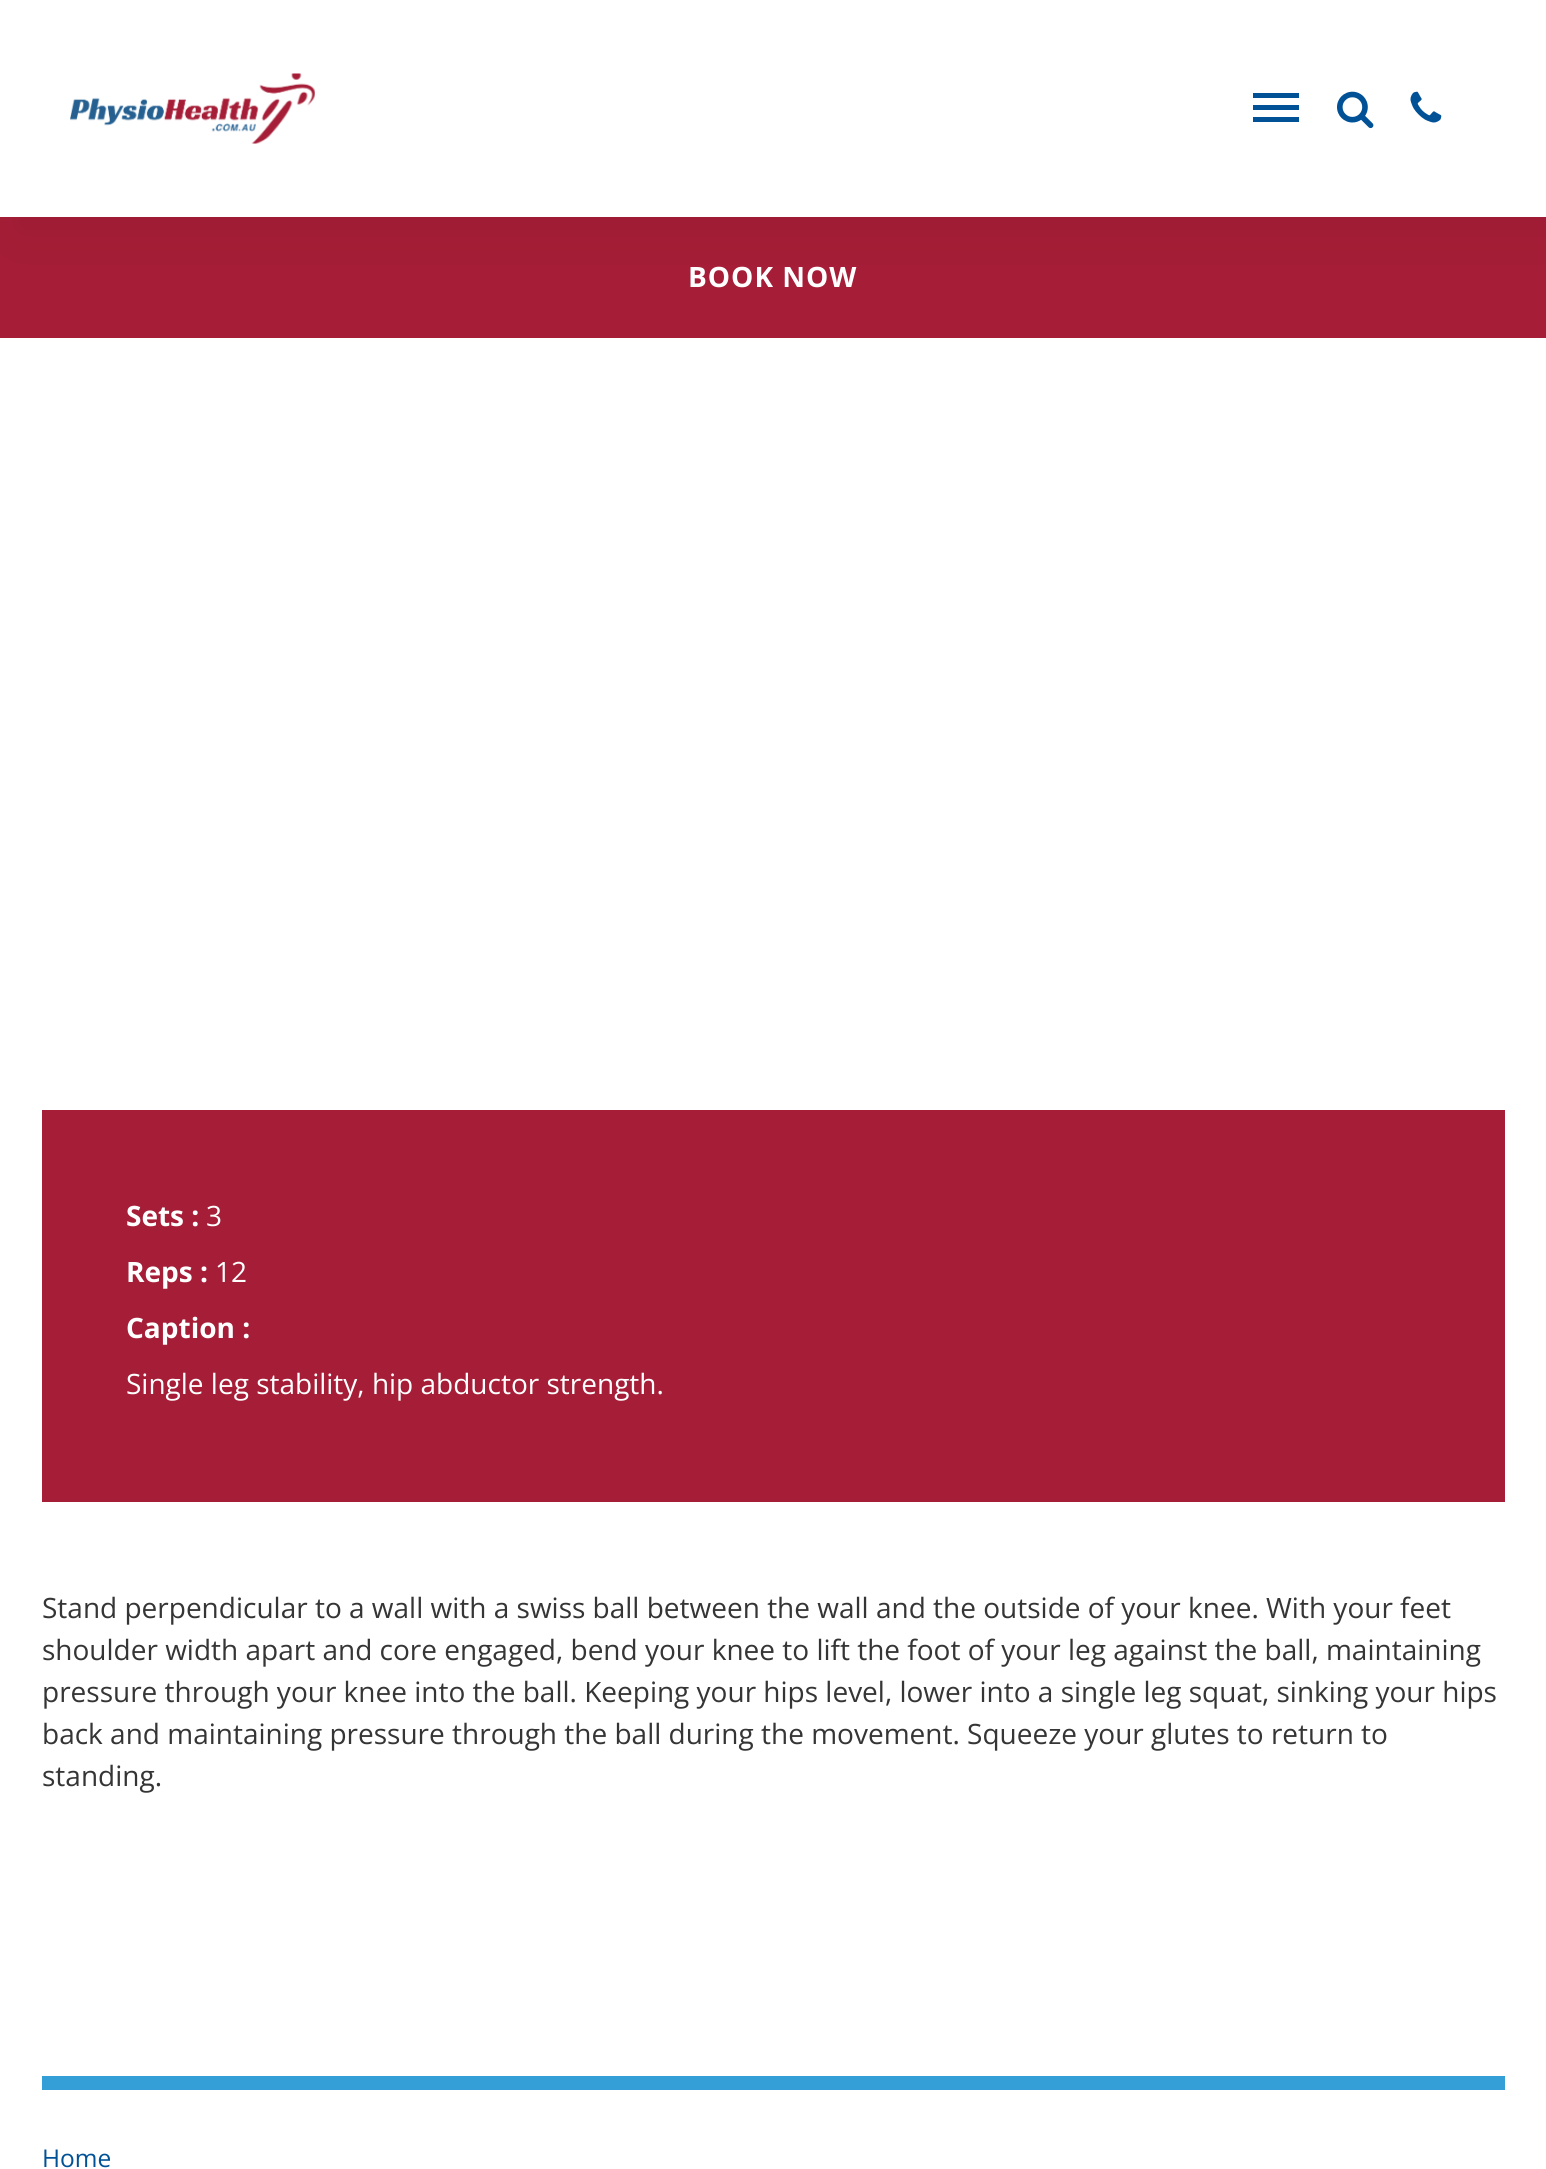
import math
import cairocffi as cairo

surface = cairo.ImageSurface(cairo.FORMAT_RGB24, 1546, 2169)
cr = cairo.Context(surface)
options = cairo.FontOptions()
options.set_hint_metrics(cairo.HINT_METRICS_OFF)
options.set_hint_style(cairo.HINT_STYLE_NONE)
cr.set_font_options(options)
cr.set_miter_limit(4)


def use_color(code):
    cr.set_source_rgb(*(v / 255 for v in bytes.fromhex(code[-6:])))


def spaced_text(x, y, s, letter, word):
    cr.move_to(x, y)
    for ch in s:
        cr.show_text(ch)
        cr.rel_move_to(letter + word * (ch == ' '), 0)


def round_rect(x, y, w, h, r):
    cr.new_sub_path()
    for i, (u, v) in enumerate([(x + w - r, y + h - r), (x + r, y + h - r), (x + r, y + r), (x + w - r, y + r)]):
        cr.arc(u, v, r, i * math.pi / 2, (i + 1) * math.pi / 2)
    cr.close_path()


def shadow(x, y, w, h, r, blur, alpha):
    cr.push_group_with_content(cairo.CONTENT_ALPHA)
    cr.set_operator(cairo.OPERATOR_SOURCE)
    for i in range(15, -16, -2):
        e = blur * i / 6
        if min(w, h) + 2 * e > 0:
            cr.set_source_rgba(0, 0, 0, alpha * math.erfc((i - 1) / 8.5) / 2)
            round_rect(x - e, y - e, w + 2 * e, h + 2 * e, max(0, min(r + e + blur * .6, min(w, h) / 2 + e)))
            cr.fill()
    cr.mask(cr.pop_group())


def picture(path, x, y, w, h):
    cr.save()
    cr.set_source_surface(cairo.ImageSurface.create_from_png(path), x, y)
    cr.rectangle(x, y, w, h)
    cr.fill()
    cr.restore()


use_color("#ffffff")
cr.paint()
use_color("#a51d36")
cr.rectangle(0, 217, 1546, 121)
cr.fill()
use_color("#000000")
shadow(16, 16, 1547, 217, 0, 21, 0.05)
use_color("#ffffff")
cr.rectangle(0, 0, 1546, 217)
cr.fill()
picture("img1.png", 70, 73, 245, 71)
use_color("#005196")
cr.rectangle(1253, 93, 46, 5)
cr.fill()
cr.rectangle(1253, 105, 46, 5)
cr.fill()
cr.rectangle(1253, 117, 46, 5)
cr.fill()
picture("img2.png", 1337, 91, 37, 38)
picture("img3.png", 1410, 91, 32, 32)
cr.select_font_face("Open Sans", cairo.FONT_SLANT_NORMAL, cairo.FONT_WEIGHT_BOLD)
cr.set_font_size(28)
use_color("#ffffff")
spaced_text(688, 287, "BOOK NOW", 1, 0)
use_color("#a51d36")
cr.rectangle(42, 1110, 1463, 392)
cr.fill()
use_color("#ffffff")
cr.move_to(126, 1226)
cr.show_text("Sets :")
cr.select_font_face("Open Sans")
cr.move_to(206, 1226)
cr.show_text("3")
cr.select_font_face("Open Sans", cairo.FONT_SLANT_NORMAL, cairo.FONT_WEIGHT_BOLD)
cr.move_to(126, 1282)
cr.show_text("Reps :")
cr.select_font_face("Open Sans")
cr.move_to(215, 1282)
cr.show_text("12")
cr.select_font_face("Open Sans", cairo.FONT_SLANT_NORMAL, cairo.FONT_WEIGHT_BOLD)
cr.move_to(126, 1338)
cr.show_text("Caption :")
cr.select_font_face("Open Sans")
cr.move_to(126, 1394)
cr.show_text("Single leg stability, hip abductor strength.")
use_color("#353535")
cr.move_to(42, 1618)
cr.show_text("Stand perpendicular to a wall with a swiss ball between the wall and the outside of your knee. With your feet")
cr.move_to(42, 1660)
cr.show_text("shoulder width apart and core engaged, bend your knee to lift the foot of your leg against the ball, maintaining")
cr.move_to(42, 1702)
cr.show_text("pressure through your knee into the ball. Keeping your hips level, lower into a single leg squat, sinking your hips")
cr.move_to(42, 1744)
cr.show_text("back and maintaining pressure through the ball during the movement. Squeeze your glutes to return to")
cr.move_to(42, 1786)
cr.show_text("standing.")
use_color("#349ed7")
cr.rectangle(42, 2076, 1463, 14)
cr.fill()
cr.set_font_size(24.5)
use_color("#005196")
cr.move_to(42, 2167)
cr.show_text("Home")
surface.write_to_png("result.png")
